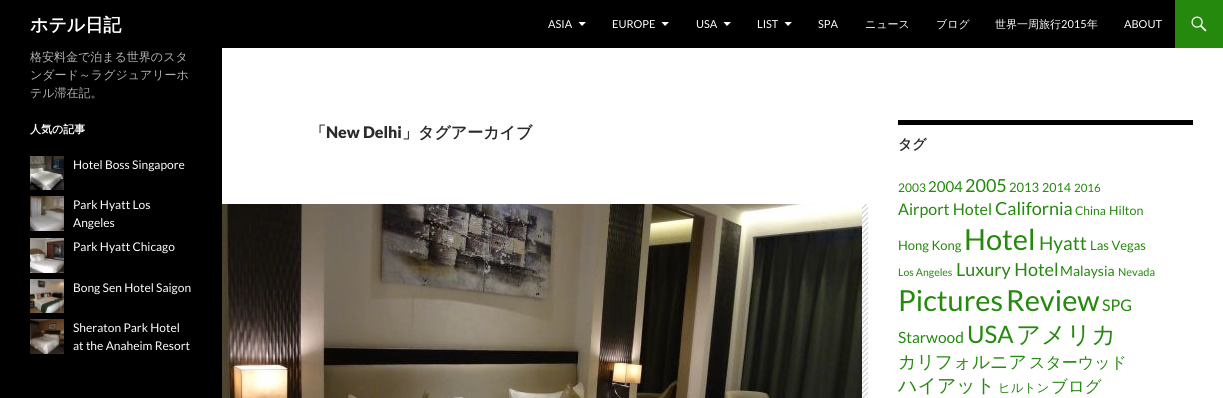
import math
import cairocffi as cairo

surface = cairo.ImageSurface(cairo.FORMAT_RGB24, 1223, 398)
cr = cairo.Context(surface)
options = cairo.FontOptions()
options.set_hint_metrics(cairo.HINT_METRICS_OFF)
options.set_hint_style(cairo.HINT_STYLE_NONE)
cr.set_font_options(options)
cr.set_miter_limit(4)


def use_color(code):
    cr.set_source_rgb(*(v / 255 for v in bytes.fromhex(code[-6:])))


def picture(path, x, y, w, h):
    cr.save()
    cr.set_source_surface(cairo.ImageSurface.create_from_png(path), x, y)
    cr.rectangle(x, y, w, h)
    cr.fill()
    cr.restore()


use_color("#ffffff")
cr.paint()
use_color("#000000")
cr.rectangle(0, 0, 1175, 48)
cr.fill()
cr.select_font_face("WenQuanYi Zen Hei", cairo.FONT_SLANT_NORMAL, cairo.FONT_WEIGHT_BOLD)
cr.set_font_size(18)
use_color("#ffffff")
cr.move_to(30, 31)
cr.show_text("ホテル日記")
cr.select_font_face("Lato")
cr.set_font_size(11)
cr.move_to(548, 28)
cr.show_text("ASIA")
cr.new_path()
cr.move_to(578.5, 22)
cr.line_to(586, 22)
cr.line_to(582, 26)
cr.close_path()
cr.fill()
cr.move_to(612, 28)
cr.show_text("EUROPE")
cr.new_path()
cr.move_to(661.5, 22)
cr.line_to(669, 22)
cr.line_to(665, 26)
cr.close_path()
cr.fill()
cr.move_to(696, 28)
cr.show_text("USA")
cr.new_path()
cr.move_to(723.5, 22)
cr.line_to(731, 22)
cr.line_to(727, 26)
cr.close_path()
cr.fill()
cr.move_to(757, 28)
cr.show_text("LIST")
cr.new_path()
cr.move_to(784.5, 22)
cr.line_to(792, 22)
cr.line_to(788, 26)
cr.close_path()
cr.fill()
cr.move_to(818, 28)
cr.show_text("SPA")
cr.select_font_face("WenQuanYi Zen Hei Medium")
cr.move_to(865, 28)
cr.show_text("ニュース")
cr.move_to(936, 28)
cr.show_text("ブログ")
cr.move_to(995, 28)
cr.show_text("世界一周旅行")
cr.select_font_face("Lato")
cr.move_to(1061, 28)
cr.show_text("2015")
cr.select_font_face("WenQuanYi Zen Hei Medium")
cr.move_to(1087, 28)
cr.show_text("年")
cr.select_font_face("Lato")
cr.move_to(1124, 28)
cr.show_text("ABOUT")
use_color("#24890d")
cr.rectangle(1175, 0, 48, 48)
cr.fill()
picture("img1.png", 1191, 16, 16, 16)
use_color("#000000")
cr.rectangle(0, 48, 222, 350)
cr.fill()
cr.select_font_face("WenQuanYi Zen Hei Medium")
cr.set_font_size(12)
use_color("#b3b3b3")
cr.move_to(30, 61)
cr.show_text("格安料金で泊まる世界のスタ")
cr.move_to(30, 79)
cr.show_text("ンダード～ラグジュアリーホ")
cr.move_to(30, 97)
cr.show_text("テル滞在記。")
cr.select_font_face("WenQuanYi Zen Hei", cairo.FONT_SLANT_NORMAL, cairo.FONT_WEIGHT_BOLD)
cr.set_font_size(11)
use_color("#ffffff")
cr.move_to(30, 133)
cr.show_text("人気の記事")
picture("img2.png", 30, 156, 34, 34)
cr.select_font_face("Lato")
cr.set_font_size(12)
cr.move_to(73, 169)
cr.show_text("Hotel Boss Singapore")
picture("img3.png", 30, 196, 34, 35)
cr.move_to(73, 209)
cr.show_text("Park Hyatt Los")
cr.move_to(73, 227)
cr.show_text("Angeles")
picture("img4.png", 30, 238, 34, 35)
cr.move_to(73, 251)
cr.show_text("Park Hyatt Chicago")
picture("img5.png", 30, 279, 34, 34)
cr.move_to(73, 292)
cr.show_text("Bong Sen Hotel Saigon")
picture("img6.png", 30, 319, 34, 35)
cr.move_to(73, 332)
cr.show_text("Sheraton Park Hotel")
cr.move_to(73, 350)
cr.show_text("at the Anaheim Resort")
cr.select_font_face("WenQuanYi Zen Hei", cairo.FONT_SLANT_NORMAL, cairo.FONT_WEIGHT_BOLD)
cr.set_font_size(16)
use_color("#2b2b2b")
cr.move_to(310, 138)
cr.show_text("「")
cr.select_font_face("Lato Black")
cr.move_to(326, 138)
cr.show_text("New Delhi")
cr.select_font_face("WenQuanYi Zen Hei", cairo.FONT_SLANT_NORMAL, cairo.FONT_WEIGHT_BOLD)
cr.move_to(402, 138)
cr.show_text("」タグアーカイブ")
use_color("#b2b2b2")
cr.rectangle(862, 204, 6, 194)
cr.fill()
picture("img7.png", 862, 204, 6, 194)
picture("img8.png", 222, 204, 640, 194)
use_color("#000000")
cr.rectangle(898, 120, 295, 5)
cr.fill()
cr.set_font_size(14)
use_color("#2b2b2b")
cr.move_to(898, 149)
cr.show_text("タグ")
cr.select_font_face("Lato")
cr.set_font_size(12)
use_color("#24890d")
cr.move_to(898, 192)
cr.show_text("2003")
cr.set_font_size(15)
cr.move_to(928, 192)
cr.show_text("2004")
cr.set_font_size(18)
cr.move_to(965, 192)
cr.show_text("2005")
cr.set_font_size(13)
cr.move_to(1009, 192)
cr.show_text("2013")
cr.set_font_size(12.5)
cr.move_to(1042, 192)
cr.show_text("2014")
cr.set_font_size(11.5)
cr.move_to(1074, 192)
cr.show_text("2016")
cr.set_font_size(16)
cr.move_to(898, 215)
cr.show_text("Airport Hotel")
cr.set_font_size(18)
cr.move_to(995, 215)
cr.show_text("California")
cr.set_font_size(12)
cr.move_to(1075, 215)
cr.show_text("China")
cr.set_font_size(12.5)
cr.move_to(1109, 215)
cr.show_text("Hilton")
cr.set_font_size(13)
cr.move_to(898, 250)
cr.show_text("Hong Kong")
cr.set_font_size(29)
cr.move_to(964, 250)
cr.show_text("Hotel")
cr.set_font_size(19)
cr.move_to(1039, 250)
cr.show_text("Hyatt")
cr.set_font_size(13)
cr.move_to(1090, 250)
cr.show_text("Las Vegas")
cr.set_font_size(10.5)
cr.move_to(898, 276)
cr.show_text("Los Angeles")
cr.set_font_size(18)
cr.move_to(956, 276)
cr.show_text("Luxury Hotel")
cr.set_font_size(14)
cr.move_to(1060, 276)
cr.show_text("Malaysia")
cr.set_font_size(11)
cr.move_to(1118, 276)
cr.show_text("Nevada")
cr.set_font_size(29)
cr.move_to(898, 311)
cr.show_text("Pictures")
cr.move_to(1006, 311)
cr.show_text("Review")
cr.set_font_size(16)
cr.move_to(1102, 311)
cr.show_text("SPG")
cr.set_font_size(15.5)
cr.move_to(898, 343)
cr.show_text("Starwood")
cr.set_font_size(24)
cr.move_to(967, 343)
cr.show_text("USA")
cr.select_font_face("WenQuanYi Zen Hei Medium")
cr.set_font_size(24.5)
cr.move_to(1016, 343)
cr.show_text("アメリカ")
cr.set_font_size(18)
cr.move_to(898, 368)
cr.show_text("カリフォルニア")
cr.set_font_size(16)
cr.move_to(1029, 368)
cr.show_text("スターウッド")
cr.set_font_size(19)
cr.move_to(898, 392)
cr.show_text("ハイアット")
cr.set_font_size(12.5)
cr.move_to(998, 392)
cr.show_text("ヒルトン")
cr.set_font_size(16.5)
cr.move_to(1051, 392)
cr.show_text("ブログ")
surface.write_to_png("result.png")
